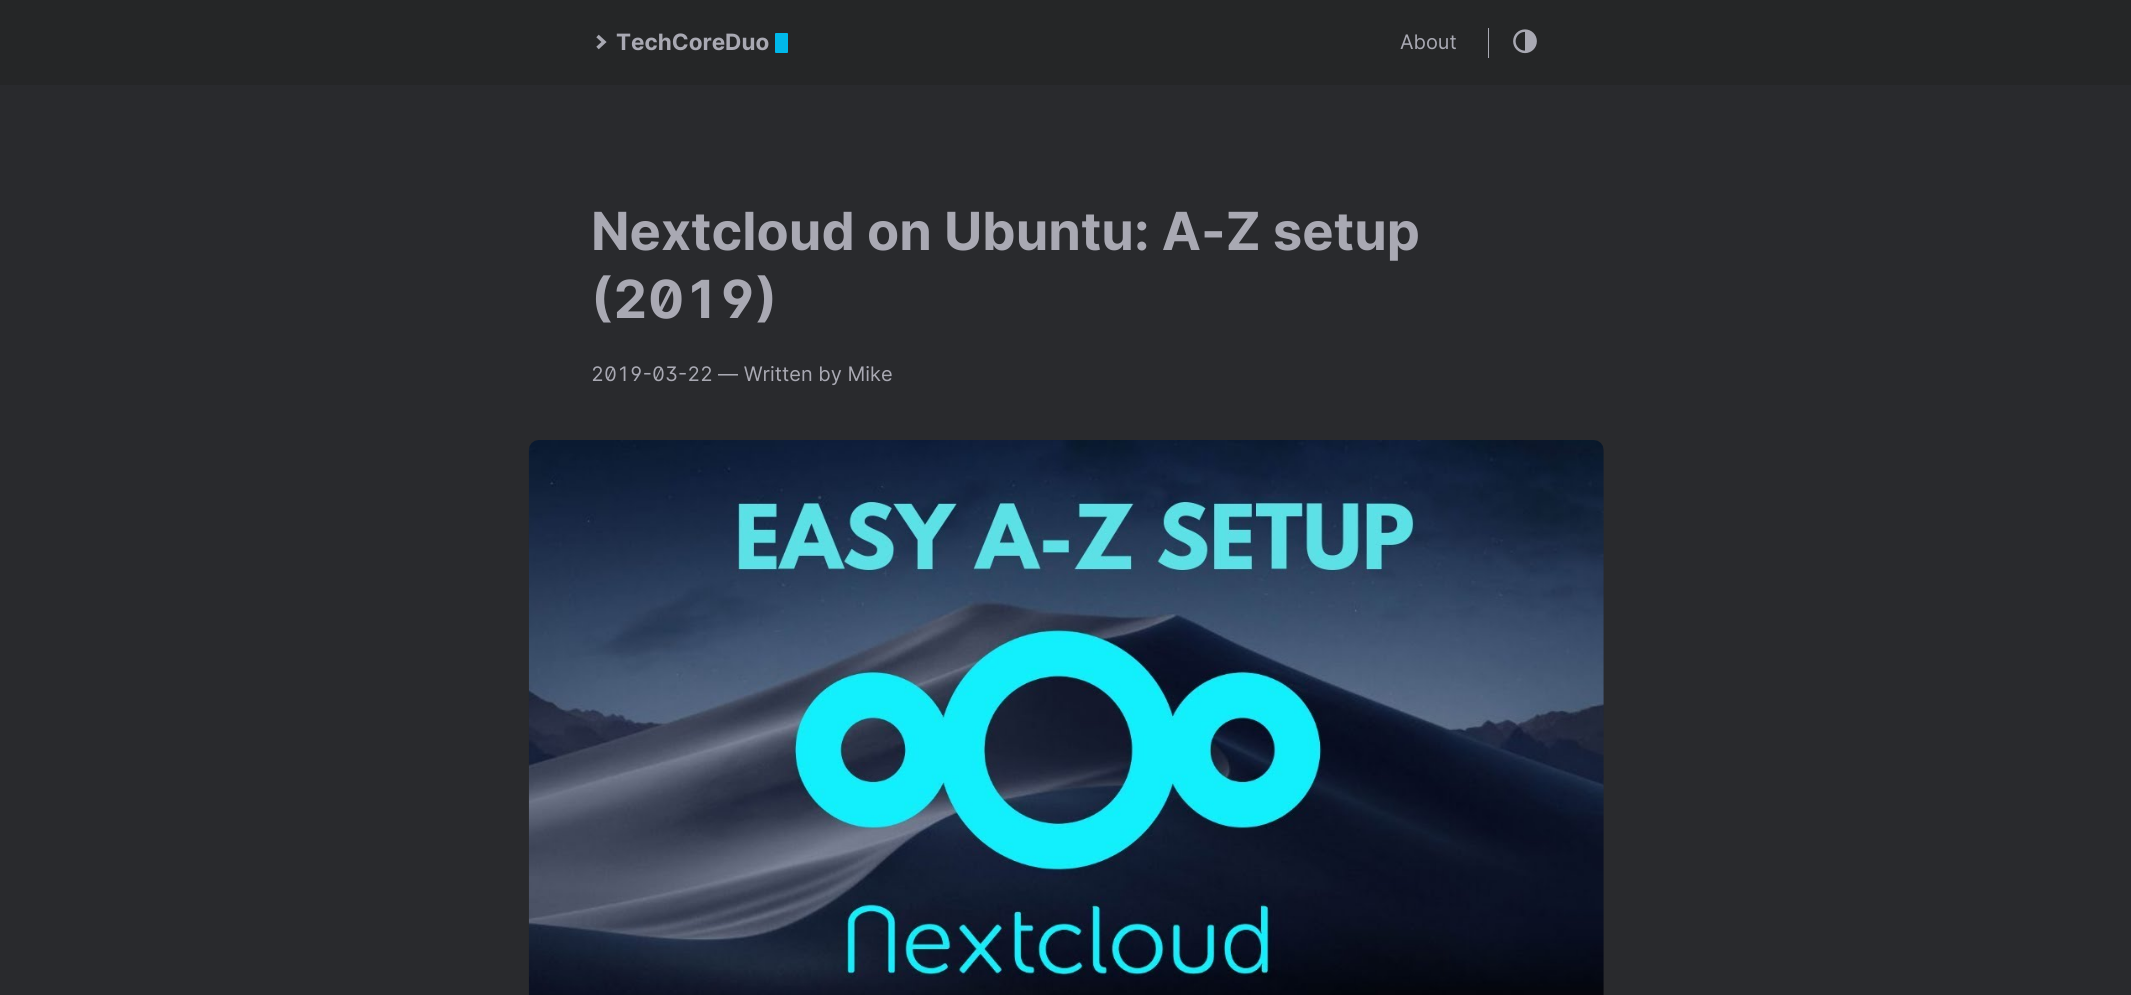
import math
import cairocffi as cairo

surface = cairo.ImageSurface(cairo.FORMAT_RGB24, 2131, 995)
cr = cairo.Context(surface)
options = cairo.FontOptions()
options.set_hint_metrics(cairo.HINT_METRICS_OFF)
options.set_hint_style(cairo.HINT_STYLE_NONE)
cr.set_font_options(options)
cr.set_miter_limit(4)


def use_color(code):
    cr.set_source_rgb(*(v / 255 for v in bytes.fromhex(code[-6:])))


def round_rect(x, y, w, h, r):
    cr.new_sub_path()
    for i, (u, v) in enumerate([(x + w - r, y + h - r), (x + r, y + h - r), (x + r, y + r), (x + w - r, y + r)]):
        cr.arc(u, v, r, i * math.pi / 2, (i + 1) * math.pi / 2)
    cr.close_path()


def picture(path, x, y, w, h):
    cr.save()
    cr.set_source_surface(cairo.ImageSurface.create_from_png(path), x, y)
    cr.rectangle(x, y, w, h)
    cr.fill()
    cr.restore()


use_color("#292a2d")
cr.paint()
use_color("#252627")
cr.rectangle(0, 0, 2131, 85)
cr.fill()
cr.new_path()
cr.move_to(597.5, 36)
cr.line_to(604, 42)
cr.line_to(597.5, 48)
use_color("#a9a9b3")
cr.set_line_width(3.5)
cr.stroke()
cr.select_font_face("Inter", cairo.FONT_SLANT_NORMAL, cairo.FONT_WEIGHT_BOLD)
cr.set_font_size(22.5)
cr.move_to(616, 50)
cr.show_text("TechCoreDuo")
use_color("#00b8ea")
round_rect(775, 33, 13, 20, 1)
cr.fill()
use_color("#a9a9b3")
cr.rectangle(1488, 28, 1, 30)
cr.fill()
cr.select_font_face("Inter")
cr.set_font_size(20)
cr.move_to(1400, 49)
cr.show_text("About")
picture("img1.png", 1513, 29, 24, 25)
cr.select_font_face("Inter", cairo.FONT_SLANT_NORMAL, cairo.FONT_WEIGHT_BOLD)
cr.set_font_size(52.5)
cr.move_to(591, 250)
cr.show_text("Nextcloud on Ubuntu: A-Z setup")
cr.select_font_face("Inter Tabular", cairo.FONT_SLANT_NORMAL, cairo.FONT_WEIGHT_BOLD)
cr.move_to(591, 318)
cr.show_text("(2019)")
cr.select_font_face("Inter Tabular")
cr.set_font_size(20)
cr.move_to(591, 381)
cr.show_text("2019-03-22")
cr.select_font_face("Inter")
cr.move_to(718, 381)
cr.show_text("— Written by Mike")
picture("img2.png", 528, 440, 1076, 555)
surface.write_to_png("result.png")
